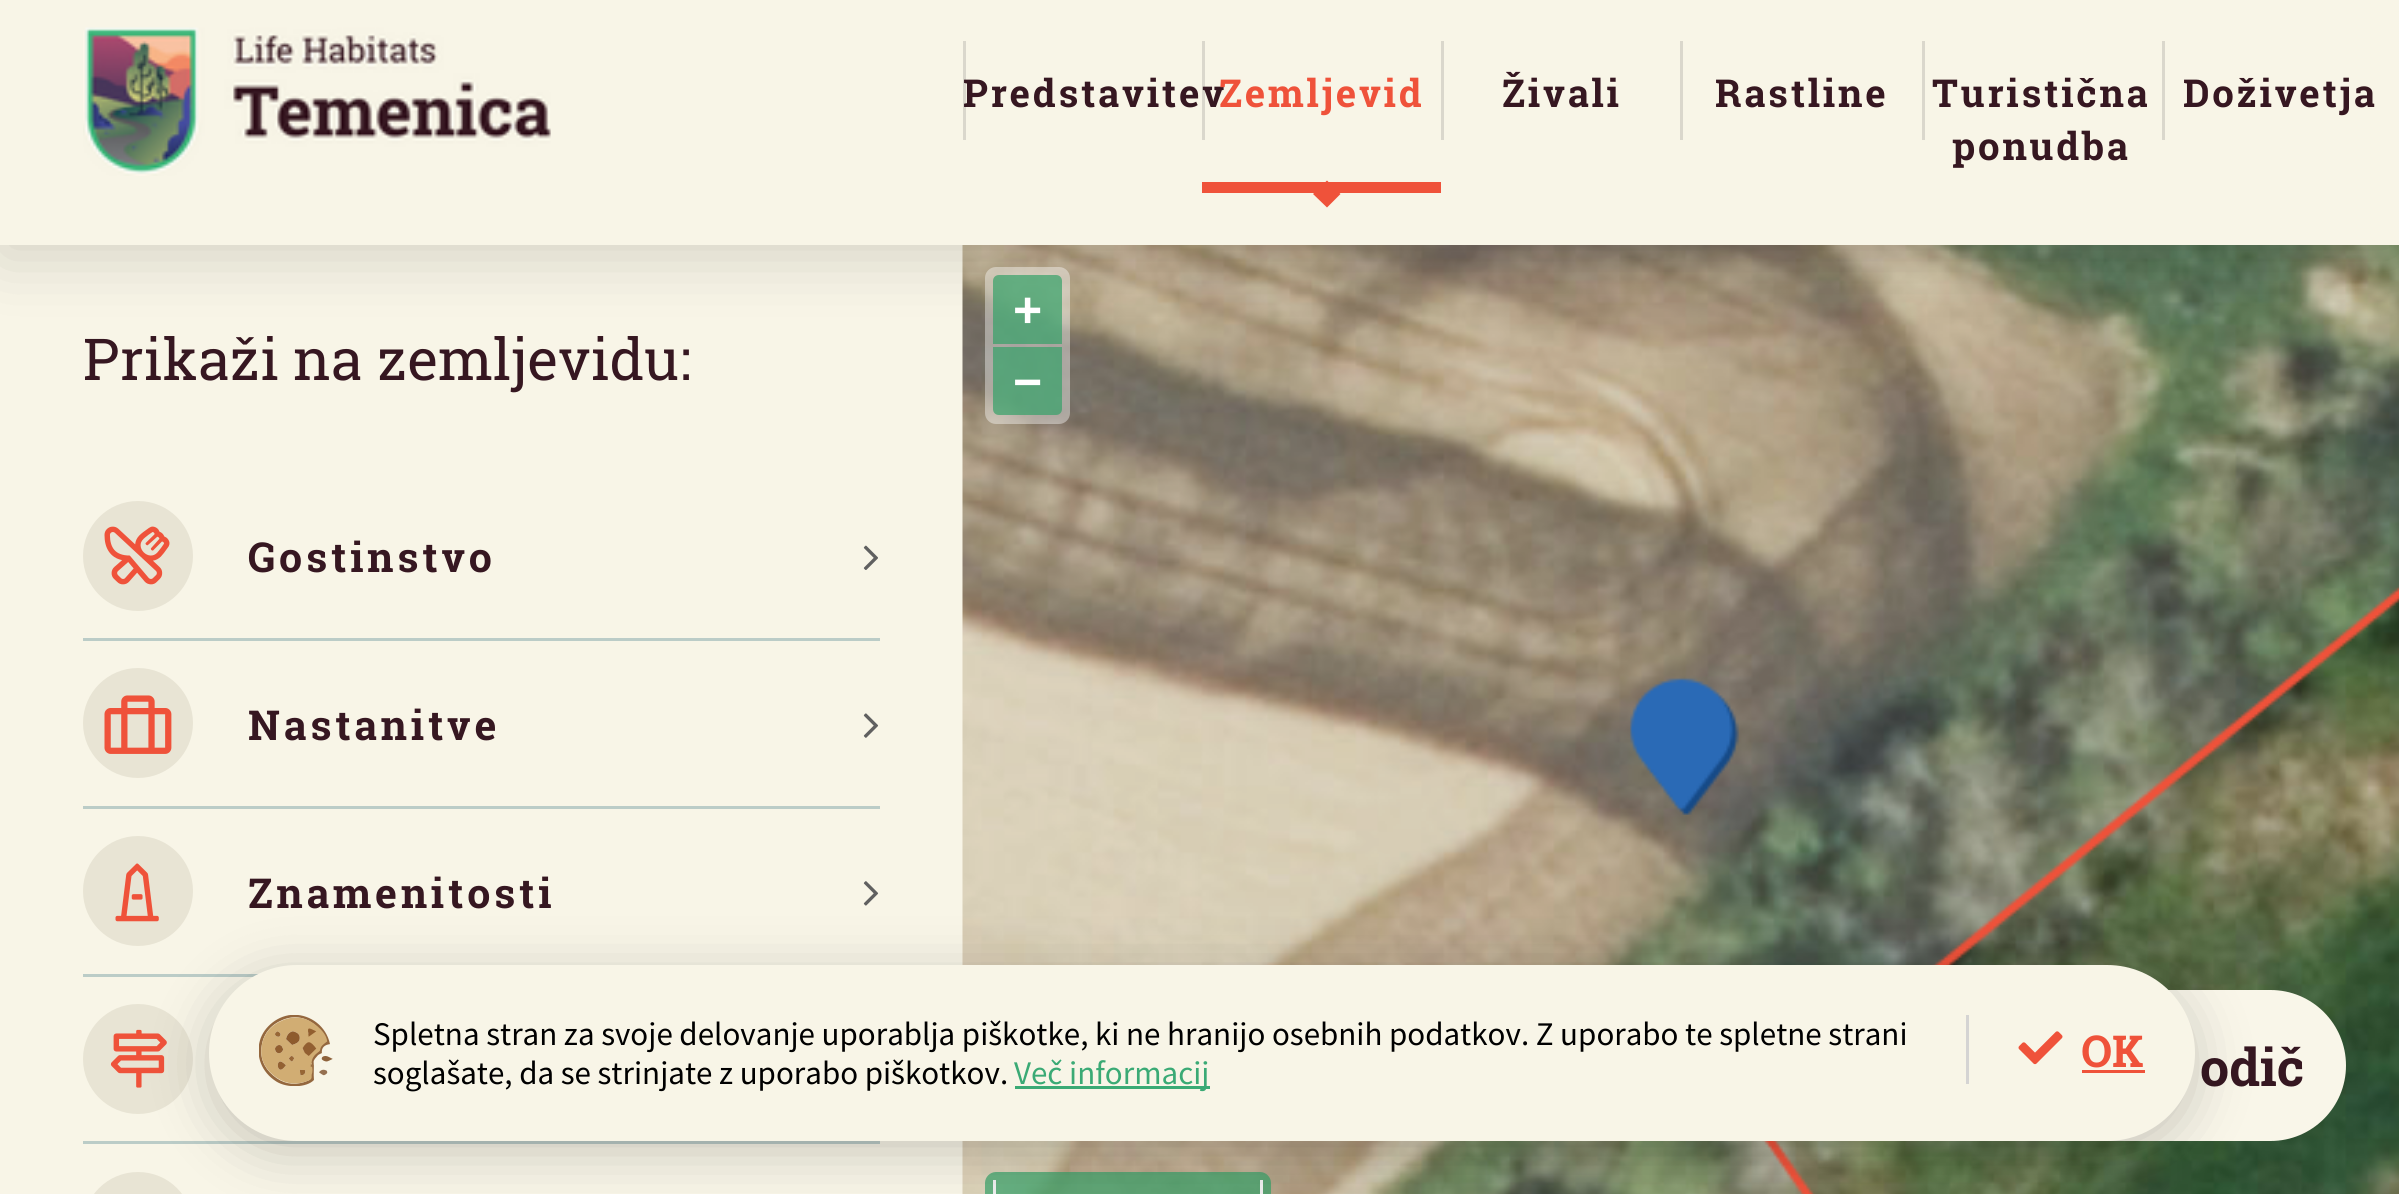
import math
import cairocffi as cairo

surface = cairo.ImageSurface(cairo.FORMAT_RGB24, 2399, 1194)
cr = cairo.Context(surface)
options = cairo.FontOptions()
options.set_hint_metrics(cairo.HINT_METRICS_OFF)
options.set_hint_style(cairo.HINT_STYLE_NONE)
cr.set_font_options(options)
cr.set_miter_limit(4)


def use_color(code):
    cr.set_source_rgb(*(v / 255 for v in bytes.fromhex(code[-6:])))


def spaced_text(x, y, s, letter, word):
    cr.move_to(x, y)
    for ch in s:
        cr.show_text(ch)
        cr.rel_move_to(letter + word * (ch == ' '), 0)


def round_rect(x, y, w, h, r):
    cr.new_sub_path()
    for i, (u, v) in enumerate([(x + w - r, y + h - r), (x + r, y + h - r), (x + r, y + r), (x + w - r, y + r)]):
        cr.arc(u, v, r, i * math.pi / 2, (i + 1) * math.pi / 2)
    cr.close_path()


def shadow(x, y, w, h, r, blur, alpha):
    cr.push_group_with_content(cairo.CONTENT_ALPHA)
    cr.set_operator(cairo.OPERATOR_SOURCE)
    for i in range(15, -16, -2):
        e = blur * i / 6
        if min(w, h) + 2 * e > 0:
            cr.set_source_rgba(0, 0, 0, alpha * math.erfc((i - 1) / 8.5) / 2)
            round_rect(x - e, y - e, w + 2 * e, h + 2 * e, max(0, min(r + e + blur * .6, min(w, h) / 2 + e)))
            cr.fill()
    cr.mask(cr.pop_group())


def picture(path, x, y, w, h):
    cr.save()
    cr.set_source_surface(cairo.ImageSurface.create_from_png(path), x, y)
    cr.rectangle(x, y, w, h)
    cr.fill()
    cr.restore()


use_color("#f8f5e7")
cr.paint()
picture("img9.png", 962, 245, 1437, 949)
use_color("#000000")
shadow(0, 11, 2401, 245, 0, 33, 0.15)
use_color("#f8f5e7")
cr.rectangle(0, 0, 2399, 245)
cr.fill()
picture("img1.png", 83, 27, 468, 149)
use_color("#dad7cc")
cr.rectangle(963, 41, 3, 99)
cr.fill()
cr.rectangle(1202, 41, 3, 99)
cr.fill()
cr.select_font_face("Roboto Slab", cairo.FONT_SLANT_NORMAL, cairo.FONT_WEIGHT_BOLD)
cr.set_font_size(38.5)
use_color("#361721")
spaced_text(963, 107, "Predstavitev", 2.75, 0)
use_color("#ef523a")
cr.rectangle(1202, 182, 239, 11)
cr.fill()
spaced_text(1219, 107, "Zemljevid", 2.75, 0)
cr.new_path()
cr.move_to(1327, 180.5)
cr.line_to(1340.5, 194)
cr.line_to(1327, 207.5)
cr.line_to(1313, 194)
cr.close_path()
cr.fill()
use_color("#dad7cc")
cr.rectangle(1441, 41, 3, 99)
cr.fill()
use_color("#361721")
spaced_text(1502, 107, "Živali", 2.75, 0)
use_color("#dad7cc")
cr.rectangle(1680, 41, 3, 99)
cr.fill()
use_color("#361721")
spaced_text(1715, 107, "Rastline", 2.75, 0)
use_color("#dad7cc")
cr.rectangle(1922, 41, 3, 99)
cr.fill()
use_color("#361721")
spaced_text(1932, 107, "Turistična", 2.75, 0)
spaced_text(1952, 160, "ponudba", 2.75, 0)
use_color("#dad7cc")
cr.rectangle(2162, 41, 3, 99)
cr.fill()
use_color("#361721")
spaced_text(2183, 107, "Doživetja", 2.75, 0)
cr.select_font_face("Roboto Slab")
cr.set_font_size(57.75)
cr.move_to(83, 380)
cr.show_text("Prikaži na zemljevidu:")
use_color("#bbccc7")
cr.rectangle(83, 638, 797, 3)
cr.fill()
use_color("#e8e4d4")
cr.arc(138, 556, 55, 0, 2 * math.pi)
cr.fill()
picture("img2.png", 104, 526, 66, 59)
cr.select_font_face("Roboto Slab", cairo.FONT_SLANT_NORMAL, cairo.FONT_WEIGHT_BOLD)
cr.set_font_size(41.25)
use_color("#361721")
spaced_text(248, 572, "Gostinstvo", 3.8, 0)
picture("img3.png", 863, 545, 15, 25)
use_color("#bbccc7")
cr.rectangle(83, 806, 797, 3)
cr.fill()
use_color("#e8e4d4")
cr.arc(138, 723, 55, 0, 2 * math.pi)
cr.fill()
picture("img4.png", 104, 695, 68, 59)
use_color("#361721")
spaced_text(248, 740, "Nastanitve", 3.8, 0)
picture("img5.png", 863, 713, 16, 25)
use_color("#bbccc7")
cr.rectangle(83, 974, 176, 3)
cr.fill()
use_color("#e8e4d4")
cr.arc(138, 891, 55, 0, 2 * math.pi)
cr.fill()
picture("img6.png", 115, 863, 44, 59)
use_color("#361721")
spaced_text(248, 908, "Znamenitosti", 3.8, 0)
picture("img7.png", 863, 881, 16, 25)
use_color("#bbccc7")
cr.rectangle(83, 1141, 797, 3)
cr.fill()
use_color("#e8e4d4")
cr.arc(138, 1059, 55, 0, 2 * math.pi)
cr.fill()
picture("img8.png", 110, 1029, 57, 59)
cr.new_path()
cr.move_to(138, 1172)
cr.curve_to(168.5, 1172, 193, 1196.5, 193, 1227)
cr.line_to(193, 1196)
cr.line_to(83, 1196)
cr.line_to(83, 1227)
cr.curve_to(83, 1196.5, 107.5, 1172, 138, 1172)
cr.close_path()
cr.fill()
cr.set_source_rgba(1, 1, 1, 0.4)
round_rect(985, 267, 85, 157, 11)
cr.fill()
cr.set_source_rgba(0.212, 0.635, 0.408, 0.7)
cr.new_path()
cr.move_to(999, 275)
cr.line_to(1056, 275)
cr.curve_to(1059.5, 275, 1062, 277.5, 1062, 281)
cr.line_to(1062, 344)
cr.line_to(993, 344)
cr.line_to(993, 281)
cr.curve_to(993, 277.5, 995.5, 275, 999, 275)
cr.close_path()
cr.fill()
cr.select_font_face("Liberation Sans", cairo.FONT_SLANT_NORMAL, cairo.FONT_WEIGHT_BOLD)
cr.set_font_size(50)
use_color("#ffffff")
cr.move_to(1013, 327)
cr.show_text("+")
cr.set_source_rgba(0.212, 0.635, 0.408, 0.7)
cr.new_path()
cr.move_to(993, 347)
cr.line_to(1062, 347)
cr.line_to(1062, 409)
cr.curve_to(1062, 412.5, 1059.5, 415, 1056, 415)
cr.line_to(999, 415)
cr.curve_to(995.5, 415, 993, 412.5, 993, 409)
cr.close_path()
cr.fill()
use_color("#ffffff")
cr.move_to(1013, 399)
cr.show_text("−")
cr.set_source_rgba(0.212, 0.635, 0.408, 0.7)
cr.new_path()
cr.move_to(996, 1172)
cr.line_to(1260, 1172)
cr.curve_to(1266, 1172, 1271, 1177, 1271, 1183)
cr.line_to(1271, 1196)
cr.line_to(985, 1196)
cr.line_to(985, 1183)
cr.curve_to(985, 1177, 990, 1172, 996, 1172)
cr.close_path()
cr.fill()
use_color("#eeeeee")
cr.rectangle(1260, 1180, 3, 14)
cr.fill()
cr.rectangle(993, 1180, 3, 14)
cr.fill()
use_color("#f9f6e9")
round_rect(1958, 990, 388, 151, 75.5)
cr.fill()
cr.select_font_face("Roboto Slab", cairo.FONT_SLANT_NORMAL, cairo.FONT_WEIGHT_BOLD)
cr.set_font_size(52)
use_color("#361721")
cr.move_to(2200, 1086)
cr.show_text("odič")
use_color("#000000")
shadow(209, 976, 1986, 176, 88, 27.5, 0.2)
use_color("#f8f5e7")
round_rect(209, 965, 1986, 176, 88)
cr.fill()
picture("img10.png", 259, 1015, 74, 71)
cr.select_font_face("Source Sans Pro")
cr.set_font_size(33)
use_color("#000000")
cr.move_to(373, 1045)
cr.show_text("Spletna stran za svoje delovanje uporablja piškotke, ki ne hranijo osebnih podatkov. Z uporabo te spletne strani")
cr.move_to(373, 1084)
cr.show_text("soglašate, da se strinjate z uporabo piškotkov.")
use_color("#3aaa75")
cr.rectangle(1015, 1086, 195, 3)
cr.fill()
cr.move_to(1014, 1084)
cr.show_text("Več informacij")
use_color("#d5d4d3")
cr.rectangle(1966, 1015, 3, 69)
cr.fill()
picture("img11.png", 2018, 1031, 45, 34)
cr.select_font_face("Roboto Slab", cairo.FONT_SLANT_NORMAL, cairo.FONT_WEIGHT_BOLD)
cr.set_font_size(44)
use_color("#ef523a")
cr.move_to(2081, 1067)
cr.show_text("OK")
cr.rectangle(2082, 1070, 63, 3)
cr.fill()
surface.write_to_png("result.png")
